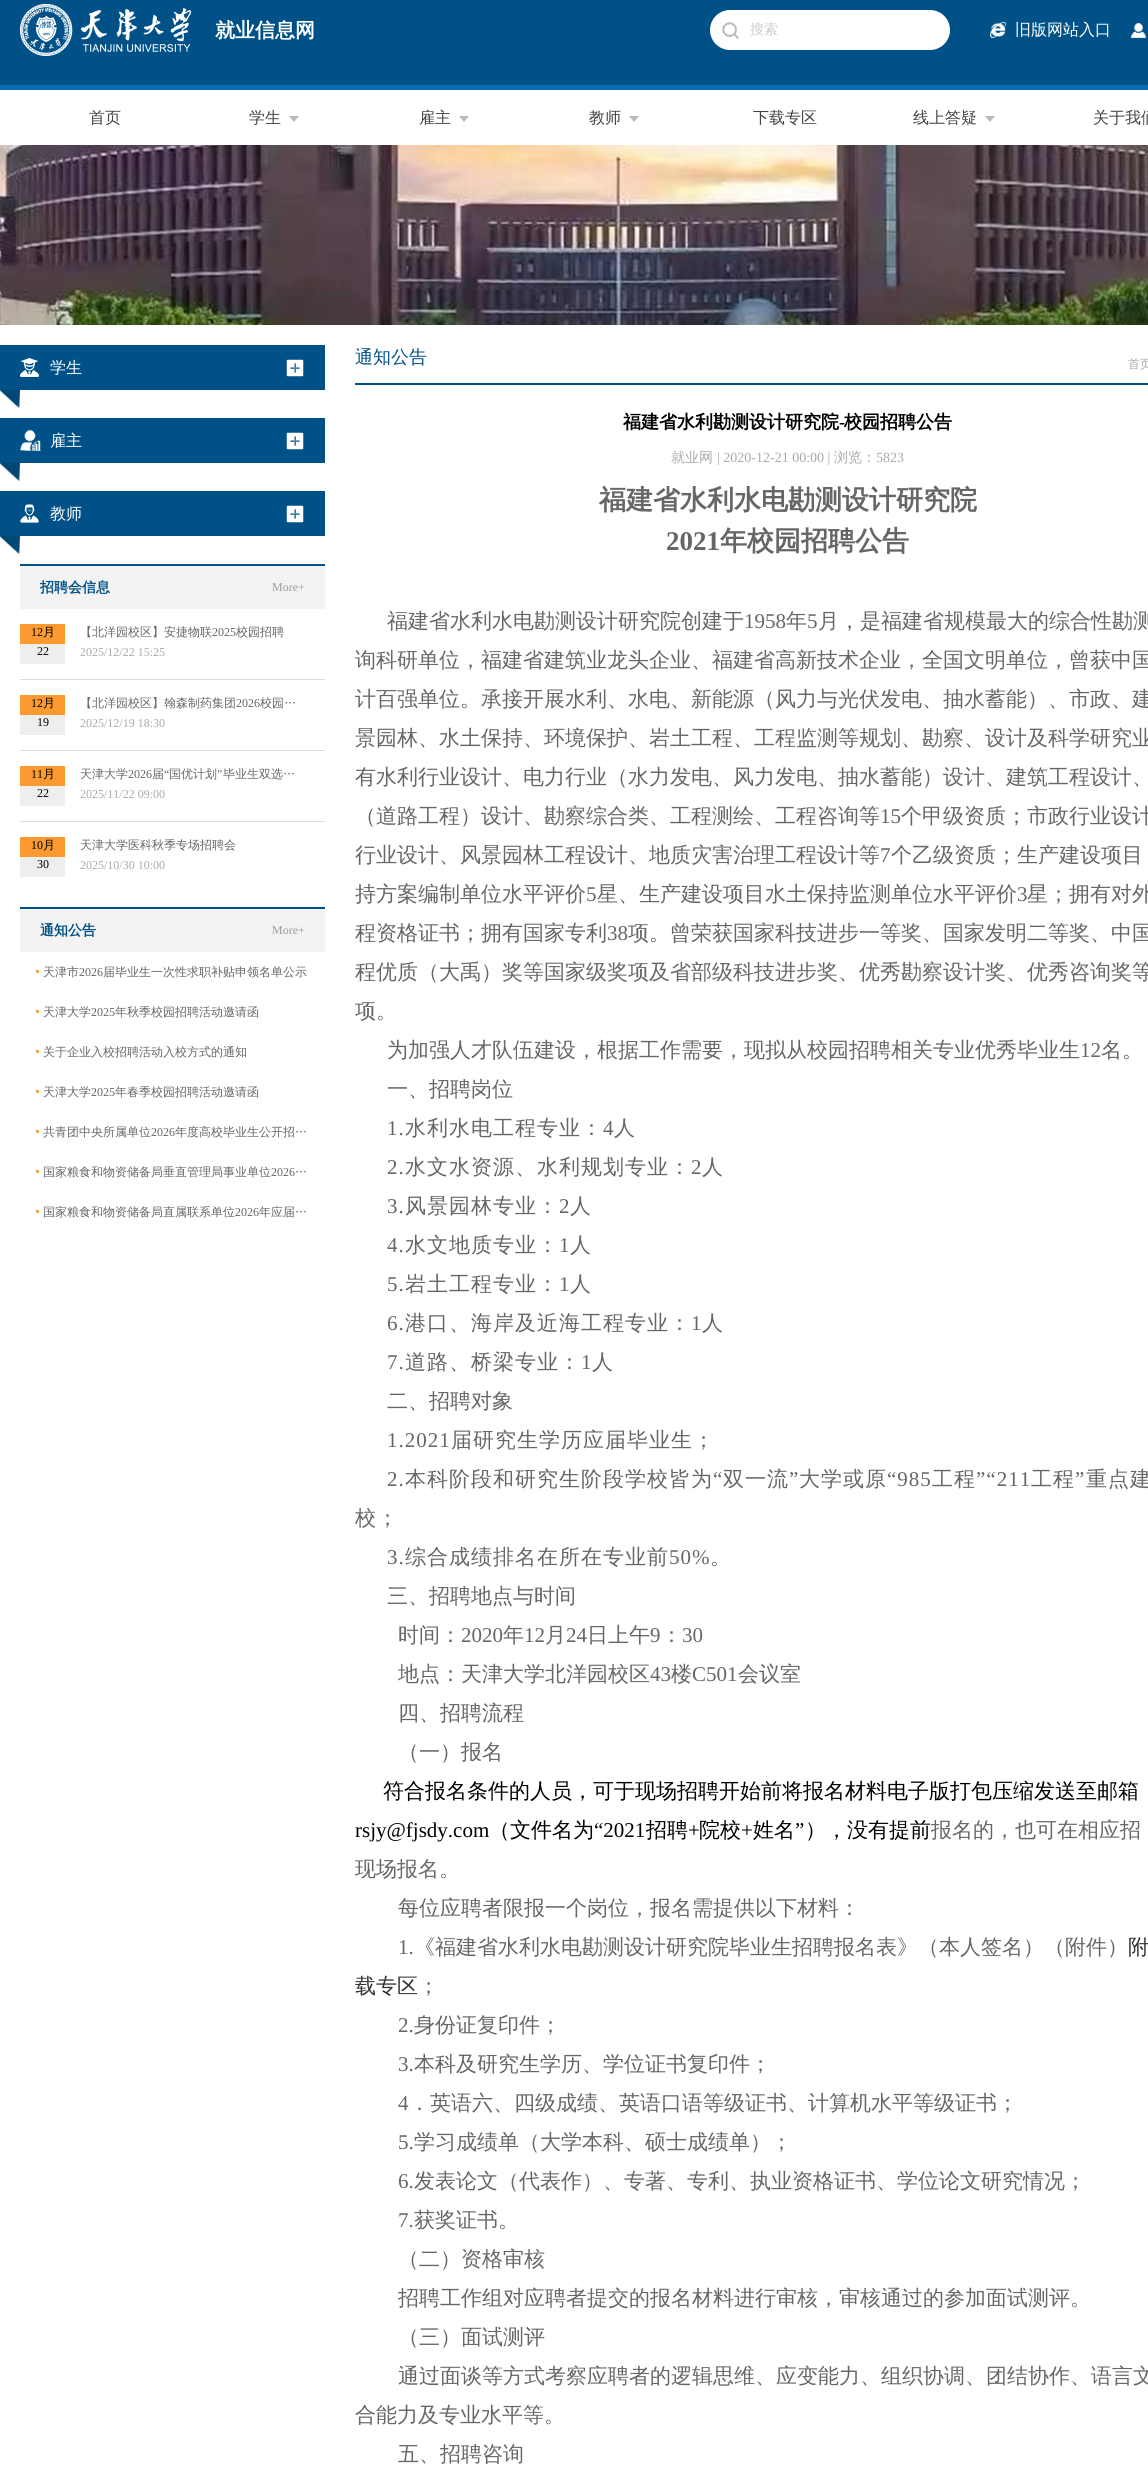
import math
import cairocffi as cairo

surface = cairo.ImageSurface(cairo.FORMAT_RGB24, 1148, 2480)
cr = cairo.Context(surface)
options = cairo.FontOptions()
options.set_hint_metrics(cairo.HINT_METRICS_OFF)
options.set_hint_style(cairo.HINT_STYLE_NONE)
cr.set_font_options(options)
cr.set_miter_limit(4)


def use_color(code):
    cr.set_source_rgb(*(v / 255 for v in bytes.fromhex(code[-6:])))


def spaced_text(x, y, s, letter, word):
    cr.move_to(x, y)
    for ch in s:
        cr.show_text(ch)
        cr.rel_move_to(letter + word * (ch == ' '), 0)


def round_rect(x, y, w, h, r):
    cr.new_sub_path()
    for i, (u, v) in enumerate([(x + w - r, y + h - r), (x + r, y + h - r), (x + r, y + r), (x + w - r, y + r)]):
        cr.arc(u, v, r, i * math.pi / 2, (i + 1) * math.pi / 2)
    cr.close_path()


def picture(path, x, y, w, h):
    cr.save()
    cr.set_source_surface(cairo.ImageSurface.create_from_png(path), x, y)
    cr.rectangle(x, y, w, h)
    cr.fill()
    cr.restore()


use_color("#ffffff")
cr.paint()
use_color("#005188")
cr.rectangle(0, 0, 1148, 85)
cr.fill()
picture("img1.png", 20, 4, 171, 52)
cr.select_font_face("WenQuanYi Zen Hei", cairo.FONT_SLANT_NORMAL, cairo.FONT_WEIGHT_BOLD)
cr.set_font_size(20)
use_color("#ffffff")
cr.move_to(215, 37)
cr.show_text("就业信息网")
round_rect(710, 10, 240, 40, 20)
cr.fill()
picture("img2.png", 722, 22, 17, 17)
cr.select_font_face("WenQuanYi Zen Hei Medium")
cr.set_font_size(14)
use_color("#cccccc")
cr.move_to(750, 34)
cr.show_text("搜索")
picture("img3.png", 990, 22, 16, 16)
cr.set_font_size(16)
use_color("#ffffff")
cr.move_to(1015, 35)
cr.show_text("旧版网站入口")
picture("img4.png", 1131, 23, 15, 15)
use_color("#0b6daf")
cr.rectangle(0, 85, 1148, 5)
cr.fill()
use_color("#444444")
cr.move_to(89, 123)
cr.show_text("首页")
cr.move_to(249, 123)
cr.show_text("学生")
picture("img5.png", 289, 116, 10, 6)
cr.move_to(419, 123)
cr.show_text("雇主")
picture("img5.png", 459, 116, 10, 6)
cr.move_to(589, 123)
cr.show_text("教师")
picture("img5.png", 629, 116, 10, 6)
cr.move_to(753, 123)
cr.show_text("下载专区")
cr.move_to(913, 123)
cr.show_text("线上答疑")
picture("img5.png", 985, 116, 10, 6)
cr.move_to(1093, 123)
cr.show_text("关于我们")
picture("img6.png", 0, 145, 1148, 180)
use_color("#005187")
cr.rectangle(0, 345, 325, 45)
cr.fill()
picture("img7.png", 20, 358, 19, 19)
use_color("#ffffff")
cr.move_to(50, 373)
cr.show_text("学生")
picture("img8.png", 286, 359, 18, 18)
picture("img9.png", 0, 390, 20, 18)
use_color("#005187")
cr.rectangle(0, 418, 325, 45)
cr.fill()
picture("img10.png", 20, 430, 21, 21)
use_color("#ffffff")
cr.move_to(50, 446)
cr.show_text("雇主")
picture("img8.png", 286, 432, 18, 18)
picture("img9.png", 0, 463, 20, 18)
use_color("#005187")
cr.rectangle(0, 491, 325, 45)
cr.fill()
picture("img11.png", 20, 504, 19, 19)
use_color("#ffffff")
cr.move_to(50, 519)
cr.show_text("教师")
picture("img8.png", 286, 505, 18, 18)
picture("img9.png", 0, 536, 20, 18)
use_color("#f3f3f3")
cr.rectangle(20, 566, 305, 43)
cr.fill()
use_color("#005187")
cr.rectangle(20, 564, 305, 2)
cr.fill()
cr.select_font_face("WenQuanYi Zen Hei", cairo.FONT_SLANT_NORMAL, cairo.FONT_WEIGHT_BOLD)
cr.set_font_size(14)
cr.move_to(40, 592)
cr.show_text("招聘会信息")
cr.select_font_face("Liberation Serif")
cr.set_font_size(12)
use_color("#999999")
cr.move_to(272, 591)
cr.show_text("More+")
use_color("#dddddd")
cr.rectangle(20, 679, 305, 1)
cr.fill()
use_color("#fc992f")
cr.rectangle(20, 624, 45, 20)
cr.fill()
use_color("#000000")
cr.move_to(31, 636)
cr.show_text("12")
cr.select_font_face("WenQuanYi Zen Hei Medium")
cr.move_to(43, 636)
cr.show_text("月")
use_color("#eeeeee")
cr.rectangle(20, 644, 45, 20)
cr.fill()
cr.select_font_face("Liberation Serif")
use_color("#000000")
cr.move_to(37, 655)
cr.show_text("22")
cr.select_font_face("WenQuanYi Zen Hei Medium")
use_color("#666666")
cr.move_to(80, 636)
cr.show_text("【北洋园校区】安捷物联")
cr.select_font_face("Liberation Serif")
cr.move_to(212, 636)
cr.show_text("2025")
cr.select_font_face("WenQuanYi Zen Hei Medium")
cr.move_to(236, 636)
cr.show_text("校园招聘")
cr.select_font_face("Liberation Serif")
use_color("#aaaaaa")
cr.move_to(80, 656)
cr.show_text("2025/12/22 15:25")
use_color("#dddddd")
cr.rectangle(20, 750, 305, 1)
cr.fill()
use_color("#fc992f")
cr.rectangle(20, 695, 45, 20)
cr.fill()
use_color("#000000")
cr.move_to(31, 707)
cr.show_text("12")
cr.select_font_face("WenQuanYi Zen Hei Medium")
cr.move_to(43, 707)
cr.show_text("月")
use_color("#eeeeee")
cr.rectangle(20, 715, 45, 20)
cr.fill()
cr.select_font_face("Liberation Serif")
use_color("#000000")
cr.move_to(37, 726)
cr.show_text("19")
cr.select_font_face("WenQuanYi Zen Hei Medium")
use_color("#666666")
cr.move_to(80, 707)
cr.show_text("【北洋园校区】翰森制药集团")
cr.select_font_face("Liberation Serif")
cr.move_to(236, 707)
cr.show_text("2026")
cr.select_font_face("WenQuanYi Zen Hei Medium")
cr.move_to(260, 707)
cr.show_text("校园…")
cr.select_font_face("Liberation Serif")
use_color("#aaaaaa")
cr.move_to(80, 727)
cr.show_text("2025/12/19 18:30")
use_color("#dddddd")
cr.rectangle(20, 821, 305, 1)
cr.fill()
use_color("#fc992f")
cr.rectangle(20, 766, 45, 20)
cr.fill()
use_color("#000000")
cr.move_to(31, 778)
cr.show_text("11")
cr.select_font_face("WenQuanYi Zen Hei Medium")
cr.move_to(43, 778)
cr.show_text("月")
use_color("#eeeeee")
cr.rectangle(20, 786, 45, 20)
cr.fill()
cr.select_font_face("Liberation Serif")
use_color("#000000")
cr.move_to(37, 797)
cr.show_text("22")
cr.select_font_face("WenQuanYi Zen Hei Medium")
use_color("#666666")
cr.move_to(80, 778)
cr.show_text("天津大学")
cr.select_font_face("Liberation Serif")
cr.move_to(128, 778)
cr.show_text("2026")
cr.select_font_face("WenQuanYi Zen Hei Medium")
cr.move_to(152, 778)
cr.show_text("届")
cr.select_font_face("Liberation Serif")
cr.move_to(164, 778)
cr.show_text("“")
cr.select_font_face("WenQuanYi Zen Hei Medium")
cr.move_to(169, 778)
cr.show_text("国优计划")
cr.select_font_face("Liberation Serif")
cr.move_to(217, 778)
cr.show_text("”")
cr.select_font_face("WenQuanYi Zen Hei Medium")
cr.move_to(223, 778)
cr.show_text("毕业生双选…")
cr.select_font_face("Liberation Serif")
use_color("#aaaaaa")
cr.move_to(80, 798)
cr.show_text("2025/11/22 09:00")
use_color("#fc992f")
cr.rectangle(20, 837, 45, 20)
cr.fill()
use_color("#000000")
cr.move_to(31, 849)
cr.show_text("10")
cr.select_font_face("WenQuanYi Zen Hei Medium")
cr.move_to(43, 849)
cr.show_text("月")
use_color("#eeeeee")
cr.rectangle(20, 857, 45, 20)
cr.fill()
cr.select_font_face("Liberation Serif")
use_color("#000000")
cr.move_to(37, 868)
cr.show_text("30")
cr.select_font_face("WenQuanYi Zen Hei Medium")
use_color("#666666")
cr.move_to(80, 849)
cr.show_text("天津大学医科秋季专场招聘会")
cr.select_font_face("Liberation Serif")
use_color("#aaaaaa")
cr.move_to(80, 869)
cr.show_text("2025/10/30 10:00")
use_color("#f3f3f3")
cr.rectangle(20, 909, 305, 43)
cr.fill()
use_color("#005187")
cr.rectangle(20, 907, 305, 2)
cr.fill()
cr.select_font_face("WenQuanYi Zen Hei", cairo.FONT_SLANT_NORMAL, cairo.FONT_WEIGHT_BOLD)
cr.set_font_size(14)
cr.move_to(40, 935)
cr.show_text("通知公告")
cr.select_font_face("Liberation Serif")
cr.set_font_size(12)
use_color("#999999")
cr.move_to(272, 934)
cr.show_text("More+")
cr.set_font_size(14)
use_color("#fc992f")
cr.move_to(35, 976)
cr.show_text("•")
cr.select_font_face("WenQuanYi Zen Hei Medium")
cr.set_font_size(12)
use_color("#666666")
cr.move_to(43, 976)
cr.show_text("天津市")
cr.select_font_face("Liberation Serif")
cr.move_to(79, 976)
cr.show_text("2026")
cr.select_font_face("WenQuanYi Zen Hei Medium")
cr.move_to(103, 976)
cr.show_text("届毕业生一次性求职补贴申领名单公示")
cr.select_font_face("Liberation Serif")
cr.set_font_size(14)
use_color("#fc992f")
cr.move_to(35, 1016)
cr.show_text("•")
cr.select_font_face("WenQuanYi Zen Hei Medium")
cr.set_font_size(12)
use_color("#666666")
cr.move_to(43, 1016)
cr.show_text("天津大学")
cr.select_font_face("Liberation Serif")
cr.move_to(91, 1016)
cr.show_text("2025")
cr.select_font_face("WenQuanYi Zen Hei Medium")
cr.move_to(115, 1016)
cr.show_text("年秋季校园招聘活动邀请函")
cr.select_font_face("Liberation Serif")
cr.set_font_size(14)
use_color("#fc992f")
cr.move_to(35, 1056)
cr.show_text("•")
cr.select_font_face("WenQuanYi Zen Hei Medium")
cr.set_font_size(12)
use_color("#666666")
cr.move_to(43, 1056)
cr.show_text("关于企业入校招聘活动入校方式的通知")
cr.select_font_face("Liberation Serif")
cr.set_font_size(14)
use_color("#fc992f")
cr.move_to(35, 1096)
cr.show_text("•")
cr.select_font_face("WenQuanYi Zen Hei Medium")
cr.set_font_size(12)
use_color("#666666")
cr.move_to(43, 1096)
cr.show_text("天津大学")
cr.select_font_face("Liberation Serif")
cr.move_to(91, 1096)
cr.show_text("2025")
cr.select_font_face("WenQuanYi Zen Hei Medium")
cr.move_to(115, 1096)
cr.show_text("年春季校园招聘活动邀请函")
cr.select_font_face("Liberation Serif")
cr.set_font_size(14)
use_color("#fc992f")
cr.move_to(35, 1136)
cr.show_text("•")
cr.select_font_face("WenQuanYi Zen Hei Medium")
cr.set_font_size(12)
use_color("#666666")
cr.move_to(43, 1136)
cr.show_text("共青团中央所属单位")
cr.select_font_face("Liberation Serif")
cr.move_to(151, 1136)
cr.show_text("2026")
cr.select_font_face("WenQuanYi Zen Hei Medium")
cr.move_to(175, 1136)
cr.show_text("年度高校毕业生公开招…")
cr.select_font_face("Liberation Serif")
cr.set_font_size(14)
use_color("#fc992f")
cr.move_to(35, 1176)
cr.show_text("•")
cr.select_font_face("WenQuanYi Zen Hei Medium")
cr.set_font_size(12)
use_color("#666666")
cr.move_to(43, 1176)
cr.show_text("国家粮食和物资储备局垂直管理局事业单位")
cr.select_font_face("Liberation Serif")
cr.move_to(271, 1176)
cr.show_text("2026")
cr.select_font_face("WenQuanYi Zen Hei Medium")
cr.move_to(295, 1176)
cr.show_text("…")
cr.select_font_face("Liberation Serif")
cr.set_font_size(14)
use_color("#fc992f")
cr.move_to(35, 1216)
cr.show_text("•")
cr.select_font_face("WenQuanYi Zen Hei Medium")
cr.set_font_size(12)
use_color("#666666")
cr.move_to(43, 1216)
cr.show_text("国家粮食和物资储备局直属联系单位")
cr.select_font_face("Liberation Serif")
cr.move_to(235, 1216)
cr.show_text("2026")
cr.select_font_face("WenQuanYi Zen Hei Medium")
cr.move_to(259, 1216)
cr.show_text("年应届…")
use_color("#005187")
cr.rectangle(355, 383, 793, 2)
cr.fill()
cr.set_font_size(18)
cr.move_to(355, 363)
cr.show_text("通知公告")
cr.set_font_size(12)
use_color("#aaaaaa")
cr.move_to(1128, 368)
cr.show_text("首页")
cr.select_font_face("WenQuanYi Zen Hei", cairo.FONT_SLANT_NORMAL, cairo.FONT_WEIGHT_BOLD)
cr.set_font_size(18)
use_color("#000000")
cr.move_to(623, 428)
cr.show_text("福建省水利勘测设计研究院")
cr.select_font_face("Liberation Serif", cairo.FONT_SLANT_NORMAL, cairo.FONT_WEIGHT_BOLD)
cr.move_to(839, 428)
cr.show_text("-")
cr.select_font_face("WenQuanYi Zen Hei", cairo.FONT_SLANT_NORMAL, cairo.FONT_WEIGHT_BOLD)
cr.move_to(844, 428)
cr.show_text("校园招聘公告")
cr.select_font_face("WenQuanYi Zen Hei Medium")
cr.set_font_size(14)
use_color("#aaaaaa")
cr.move_to(671, 462)
cr.show_text("就业网")
cr.select_font_face("Liberation Serif")
cr.move_to(717, 462)
cr.show_text("| 2020-12-21 00:00 |")
cr.select_font_face("WenQuanYi Zen Hei Medium")
cr.move_to(834, 462)
cr.show_text("浏览：")
cr.select_font_face("Liberation Serif")
cr.move_to(876, 462)
cr.show_text("5823")
cr.select_font_face("WenQuanYi Zen Hei", cairo.FONT_SLANT_NORMAL, cairo.FONT_WEIGHT_BOLD)
cr.set_font_size(27)
use_color("#666666")
cr.move_to(599, 509)
cr.show_text("福建省水利水电勘测设计研究院")
cr.select_font_face("Liberation Serif", cairo.FONT_SLANT_NORMAL, cairo.FONT_WEIGHT_BOLD)
cr.move_to(666, 550)
cr.show_text("2021")
cr.select_font_face("WenQuanYi Zen Hei", cairo.FONT_SLANT_NORMAL, cairo.FONT_WEIGHT_BOLD)
cr.move_to(720, 550)
cr.show_text("年校园招聘公告")
cr.select_font_face("WenQuanYi Zen Hei Medium")
cr.set_font_size(21)
cr.move_to(387, 628)
cr.show_text("福建省水利水电勘测设计研究院创建于")
cr.select_font_face("Liberation Serif")
cr.move_to(744, 628)
cr.show_text("1958")
cr.select_font_face("WenQuanYi Zen Hei Medium")
cr.move_to(786, 628)
cr.show_text("年")
cr.select_font_face("Liberation Serif")
cr.move_to(807, 628)
cr.show_text("5")
cr.select_font_face("WenQuanYi Zen Hei Medium")
cr.move_to(818, 628)
cr.show_text("月，是福建省规模最大的综合性勘测")
cr.move_to(355, 667)
cr.show_text("询科研单位，福建省建筑业龙头企业、福建省高新技术企业，全国文明单位，曾获中国")
cr.move_to(355, 706)
cr.show_text("计百强单位。承接开展水利、水电、新能源（风力与光伏发电、抽水蓄能）、市政、建")
cr.move_to(355, 745)
cr.show_text("景园林、水土保持、环境保护、岩土工程、工程监测等规划、勘察、设计及科学研究业")
cr.move_to(355, 784)
cr.show_text("有水利行业设计、电力行业（水力发电、风力发电、抽水蓄能）设计、建筑工程设计、")
cr.move_to(355, 823)
cr.show_text("（道路工程）设计、勘察综合类、工程测绘、工程咨询等")
cr.select_font_face("Liberation Serif")
cr.move_to(880, 823)
cr.show_text("15")
cr.select_font_face("WenQuanYi Zen Hei Medium")
cr.move_to(901, 823)
cr.show_text("个甲级资质；市政行业设计")
cr.move_to(355, 862)
cr.show_text("行业设计、风景园林工程设计、地质灾害治理工程设计等")
cr.select_font_face("Liberation Serif")
cr.move_to(880, 862)
cr.show_text("7")
cr.select_font_face("WenQuanYi Zen Hei Medium")
cr.move_to(891, 862)
cr.show_text("个乙级资质；生产建设项目")
cr.move_to(355, 901)
cr.show_text("持方案编制单位水平评价")
cr.select_font_face("Liberation Serif")
cr.move_to(586, 901)
cr.show_text("5")
cr.select_font_face("WenQuanYi Zen Hei Medium")
cr.move_to(597, 901)
cr.show_text("星、生产建设项目水土保持监测单位水平评价")
cr.select_font_face("Liberation Serif")
cr.move_to(1017, 901)
cr.show_text("3")
cr.select_font_face("WenQuanYi Zen Hei Medium")
cr.move_to(1027, 901)
cr.show_text("星；拥有对外")
cr.move_to(355, 940)
cr.show_text("程资格证书；拥有国家专利")
cr.select_font_face("Liberation Serif")
cr.move_to(607, 940)
cr.show_text("38")
cr.select_font_face("WenQuanYi Zen Hei Medium")
cr.move_to(628, 940)
cr.show_text("项。曾荣获国家科技进步一等奖、国家发明二等奖、中国")
cr.move_to(355, 979)
cr.show_text("程优质（大禹）奖等国家级奖项及省部级科技进步奖、优秀勘察设计奖、优秀咨询奖等")
cr.move_to(355, 1018)
cr.show_text("项。")
cr.move_to(387, 1057)
cr.show_text("为加强人才队伍建设，根据工作需要，现拟从校园招聘相关专业优秀毕业生")
cr.select_font_face("Liberation Serif")
cr.move_to(1080, 1057)
cr.show_text("12")
cr.select_font_face("WenQuanYi Zen Hei Medium")
cr.move_to(1101, 1057)
cr.show_text("名。")
cr.move_to(387, 1096)
cr.show_text("一、招聘岗位")
cr.select_font_face("Liberation Serif")
spaced_text(387, 1135, "1.", 1, 0)
cr.select_font_face("WenQuanYi Zen Hei Medium")
spaced_text(405, 1135, "水利水电工程专业：", 1, 0)
cr.select_font_face("Liberation Serif")
spaced_text(603, 1135, "4", 1, 0)
cr.select_font_face("WenQuanYi Zen Hei Medium")
spaced_text(614, 1135, "人", 1, 0)
cr.select_font_face("Liberation Serif")
spaced_text(387, 1174, "2.", 1, 0)
cr.select_font_face("WenQuanYi Zen Hei Medium")
spaced_text(405, 1174, "水文水资源、水利规划专业：", 1, 0)
cr.select_font_face("Liberation Serif")
spaced_text(691, 1174, "2", 1, 0)
cr.select_font_face("WenQuanYi Zen Hei Medium")
spaced_text(702, 1174, "人", 1, 0)
cr.select_font_face("Liberation Serif")
spaced_text(387, 1213, "3.", 1, 0)
cr.select_font_face("WenQuanYi Zen Hei Medium")
spaced_text(405, 1213, "风景园林专业：", 1, 0)
cr.select_font_face("Liberation Serif")
spaced_text(559, 1213, "2", 1, 0)
cr.select_font_face("WenQuanYi Zen Hei Medium")
spaced_text(570, 1213, "人", 1, 0)
cr.select_font_face("Liberation Serif")
spaced_text(387, 1252, "4.", 1, 0)
cr.select_font_face("WenQuanYi Zen Hei Medium")
spaced_text(405, 1252, "水文地质专业：", 1, 0)
cr.select_font_face("Liberation Serif")
spaced_text(559, 1252, "1", 1, 0)
cr.select_font_face("WenQuanYi Zen Hei Medium")
spaced_text(570, 1252, "人", 1, 0)
cr.select_font_face("Liberation Serif")
spaced_text(387, 1291, "5.", 1, 0)
cr.select_font_face("WenQuanYi Zen Hei Medium")
spaced_text(405, 1291, "岩土工程专业：", 1, 0)
cr.select_font_face("Liberation Serif")
spaced_text(559, 1291, "1", 1, 0)
cr.select_font_face("WenQuanYi Zen Hei Medium")
spaced_text(570, 1291, "人", 1, 0)
cr.select_font_face("Liberation Serif")
spaced_text(387, 1330, "6.", 1, 0)
cr.select_font_face("WenQuanYi Zen Hei Medium")
spaced_text(405, 1330, "港口、海岸及近海工程专业：", 1, 0)
cr.select_font_face("Liberation Serif")
spaced_text(691, 1330, "1", 1, 0)
cr.select_font_face("WenQuanYi Zen Hei Medium")
spaced_text(702, 1330, "人", 1, 0)
cr.select_font_face("Liberation Serif")
spaced_text(387, 1369, "7.", 1, 0)
cr.select_font_face("WenQuanYi Zen Hei Medium")
spaced_text(405, 1369, "道路、桥梁专业：", 1, 0)
cr.select_font_face("Liberation Serif")
spaced_text(581, 1369, "1", 1, 0)
cr.select_font_face("WenQuanYi Zen Hei Medium")
spaced_text(592, 1369, "人", 1, 0)
cr.move_to(387, 1408)
cr.show_text("二、招聘对象")
cr.select_font_face("Liberation Serif")
spaced_text(387, 1447, "1.2021", 1, 0)
cr.select_font_face("WenQuanYi Zen Hei Medium")
spaced_text(451, 1447, "届研究生学历应届毕业生；", 1, 0)
cr.select_font_face("Liberation Serif")
spaced_text(387, 1486, "2.", 1, 0)
cr.select_font_face("WenQuanYi Zen Hei Medium")
spaced_text(405, 1486, "本科阶段和研究生阶段学校皆为", 1, 0)
cr.select_font_face("Liberation Serif")
spaced_text(713, 1486, "“", 1, 0)
cr.select_font_face("WenQuanYi Zen Hei Medium")
spaced_text(723, 1486, "双一流", 1, 0)
cr.select_font_face("Liberation Serif")
spaced_text(789, 1486, "”", 1, 0)
cr.select_font_face("WenQuanYi Zen Hei Medium")
spaced_text(799, 1486, "大学或原", 1, 0)
cr.select_font_face("Liberation Serif")
spaced_text(887, 1486, "“985", 1, 0)
cr.select_font_face("WenQuanYi Zen Hei Medium")
spaced_text(932, 1486, "工程", 1, 0)
cr.select_font_face("Liberation Serif")
spaced_text(976, 1486, "”“211", 1, 0)
cr.select_font_face("WenQuanYi Zen Hei Medium")
spaced_text(1031, 1486, "工程", 1, 0)
cr.select_font_face("Liberation Serif")
spaced_text(1075, 1486, "”", 1, 0)
cr.select_font_face("WenQuanYi Zen Hei Medium")
spaced_text(1086, 1486, "重点建", 1, 0)
spaced_text(355, 1525, "校；", 1, 0)
cr.select_font_face("Liberation Serif")
spaced_text(387, 1564, "3.", 1, 0)
cr.select_font_face("WenQuanYi Zen Hei Medium")
spaced_text(405, 1564, "综合成绩排名在所在专业前", 1, 0)
cr.select_font_face("Liberation Serif")
spaced_text(669, 1564, "50%", 1, 0)
cr.select_font_face("WenQuanYi Zen Hei Medium")
spaced_text(710, 1564, "。", 1, 0)
cr.move_to(387, 1603)
cr.show_text("三、招聘地点与时间")
cr.move_to(398, 1642)
cr.show_text("时间：")
cr.select_font_face("Liberation Serif")
cr.move_to(461, 1642)
cr.show_text("2020")
cr.select_font_face("WenQuanYi Zen Hei Medium")
cr.move_to(503, 1642)
cr.show_text("年")
cr.select_font_face("Liberation Serif")
cr.move_to(524, 1642)
cr.show_text("12")
cr.select_font_face("WenQuanYi Zen Hei Medium")
cr.move_to(545, 1642)
cr.show_text("月")
cr.select_font_face("Liberation Serif")
cr.move_to(566, 1642)
cr.show_text("24")
cr.select_font_face("WenQuanYi Zen Hei Medium")
cr.move_to(587, 1642)
cr.show_text("日上午")
cr.select_font_face("Liberation Serif")
cr.move_to(650, 1642)
cr.show_text("9")
cr.select_font_face("WenQuanYi Zen Hei Medium")
cr.move_to(661, 1642)
cr.show_text("：")
cr.select_font_face("Liberation Serif")
cr.move_to(682, 1642)
cr.show_text("30")
cr.select_font_face("WenQuanYi Zen Hei Medium")
cr.move_to(398, 1681)
cr.show_text("地点：天津大学北洋园校区")
cr.select_font_face("Liberation Serif")
cr.move_to(650, 1681)
cr.show_text("43")
cr.select_font_face("WenQuanYi Zen Hei Medium")
cr.move_to(671, 1681)
cr.show_text("楼")
cr.select_font_face("Liberation Serif")
cr.move_to(692, 1681)
cr.show_text("C501")
cr.select_font_face("WenQuanYi Zen Hei Medium")
cr.move_to(738, 1681)
cr.show_text("会议室")
cr.move_to(398, 1720)
cr.show_text("四、招聘流程")
cr.move_to(398, 1759)
cr.show_text("（一）报名")
use_color("#000000")
cr.move_to(383, 1798)
cr.show_text("符合报名条件的人员，可于现场招聘开始前将报名材料电子版打包压缩发送至邮箱")
cr.select_font_face("Liberation Serif")
cr.move_to(355, 1837)
cr.show_text("rsjy@fjsdy.com")
cr.select_font_face("WenQuanYi Zen Hei Medium")
cr.move_to(489, 1837)
cr.show_text("（文件名为")
cr.select_font_face("Liberation Serif")
cr.move_to(594, 1837)
cr.show_text("“2021")
cr.select_font_face("WenQuanYi Zen Hei Medium")
cr.move_to(646, 1837)
cr.show_text("招聘")
cr.select_font_face("Liberation Serif")
cr.move_to(688, 1837)
cr.show_text("+")
cr.select_font_face("WenQuanYi Zen Hei Medium")
cr.move_to(699, 1837)
cr.show_text("院校")
cr.select_font_face("Liberation Serif")
cr.move_to(741, 1837)
cr.show_text("+")
cr.select_font_face("WenQuanYi Zen Hei Medium")
cr.move_to(753, 1837)
cr.show_text("姓名")
cr.select_font_face("Liberation Serif")
cr.move_to(795, 1837)
cr.show_text("”")
cr.select_font_face("WenQuanYi Zen Hei Medium")
cr.move_to(805, 1837)
cr.show_text("），没有提前")
use_color("#666666")
cr.move_to(931, 1837)
cr.show_text("报名的，也可在相应招")
cr.move_to(355, 1876)
cr.show_text("现场报名。")
cr.move_to(398, 1915)
cr.show_text("每位应聘者限报一个岗位，报名需提供以下材料：")
cr.select_font_face("Liberation Serif")
cr.move_to(398, 1954)
cr.show_text("1.")
cr.select_font_face("WenQuanYi Zen Hei Medium")
cr.move_to(414, 1954)
cr.show_text("《福建省水利水电勘测设计研究院毕业生招聘报名表》（本人签名）（附件）")
use_color("#333333")
cr.move_to(1128, 1954)
cr.show_text("附")
cr.move_to(355, 1993)
cr.show_text("载专区")
use_color("#666666")
cr.move_to(418, 1993)
cr.show_text("；")
cr.select_font_face("Liberation Serif")
cr.move_to(398, 2032)
cr.show_text("2.")
cr.select_font_face("WenQuanYi Zen Hei Medium")
cr.move_to(414, 2032)
cr.show_text("身份证复印件；")
cr.select_font_face("Liberation Serif")
cr.move_to(398, 2071)
cr.show_text("3.")
cr.select_font_face("WenQuanYi Zen Hei Medium")
cr.move_to(414, 2071)
cr.show_text("本科及研究生学历、学位证书复印件；")
cr.select_font_face("Liberation Serif")
cr.move_to(398, 2110)
cr.show_text("4")
cr.select_font_face("WenQuanYi Zen Hei Medium")
cr.move_to(409, 2110)
cr.show_text("．英语六、四级成绩、英语口语等级证书、计算机水平等级证书；")
cr.select_font_face("Liberation Serif")
cr.move_to(398, 2149)
cr.show_text("5.")
cr.select_font_face("WenQuanYi Zen Hei Medium")
cr.move_to(414, 2149)
cr.show_text("学习成绩单（大学本科、硕士成绩单）；")
cr.select_font_face("Liberation Serif")
cr.move_to(398, 2188)
cr.show_text("6.")
cr.select_font_face("WenQuanYi Zen Hei Medium")
cr.move_to(414, 2188)
cr.show_text("发表论文（代表作）、专著、专利、执业资格证书、学位论文研究情况；")
cr.select_font_face("Liberation Serif")
cr.move_to(398, 2227)
cr.show_text("7.")
cr.select_font_face("WenQuanYi Zen Hei Medium")
cr.move_to(414, 2227)
cr.show_text("获奖证书。")
cr.move_to(398, 2266)
cr.show_text("（二）资格审核")
cr.move_to(398, 2305)
cr.show_text("招聘工作组对应聘者提交的报名材料进行审核，审核通过的参加面试测评。")
cr.move_to(398, 2344)
cr.show_text("（三）面试测评")
cr.move_to(398, 2383)
cr.show_text("通过面谈等方式考察应聘者的逻辑思维、应变能力、组织协调、团结协作、语言文")
cr.move_to(355, 2422)
cr.show_text("合能力及专业水平等。")
cr.move_to(398, 2461)
cr.show_text("五、招聘咨询")
surface.write_to_png("result.png")
